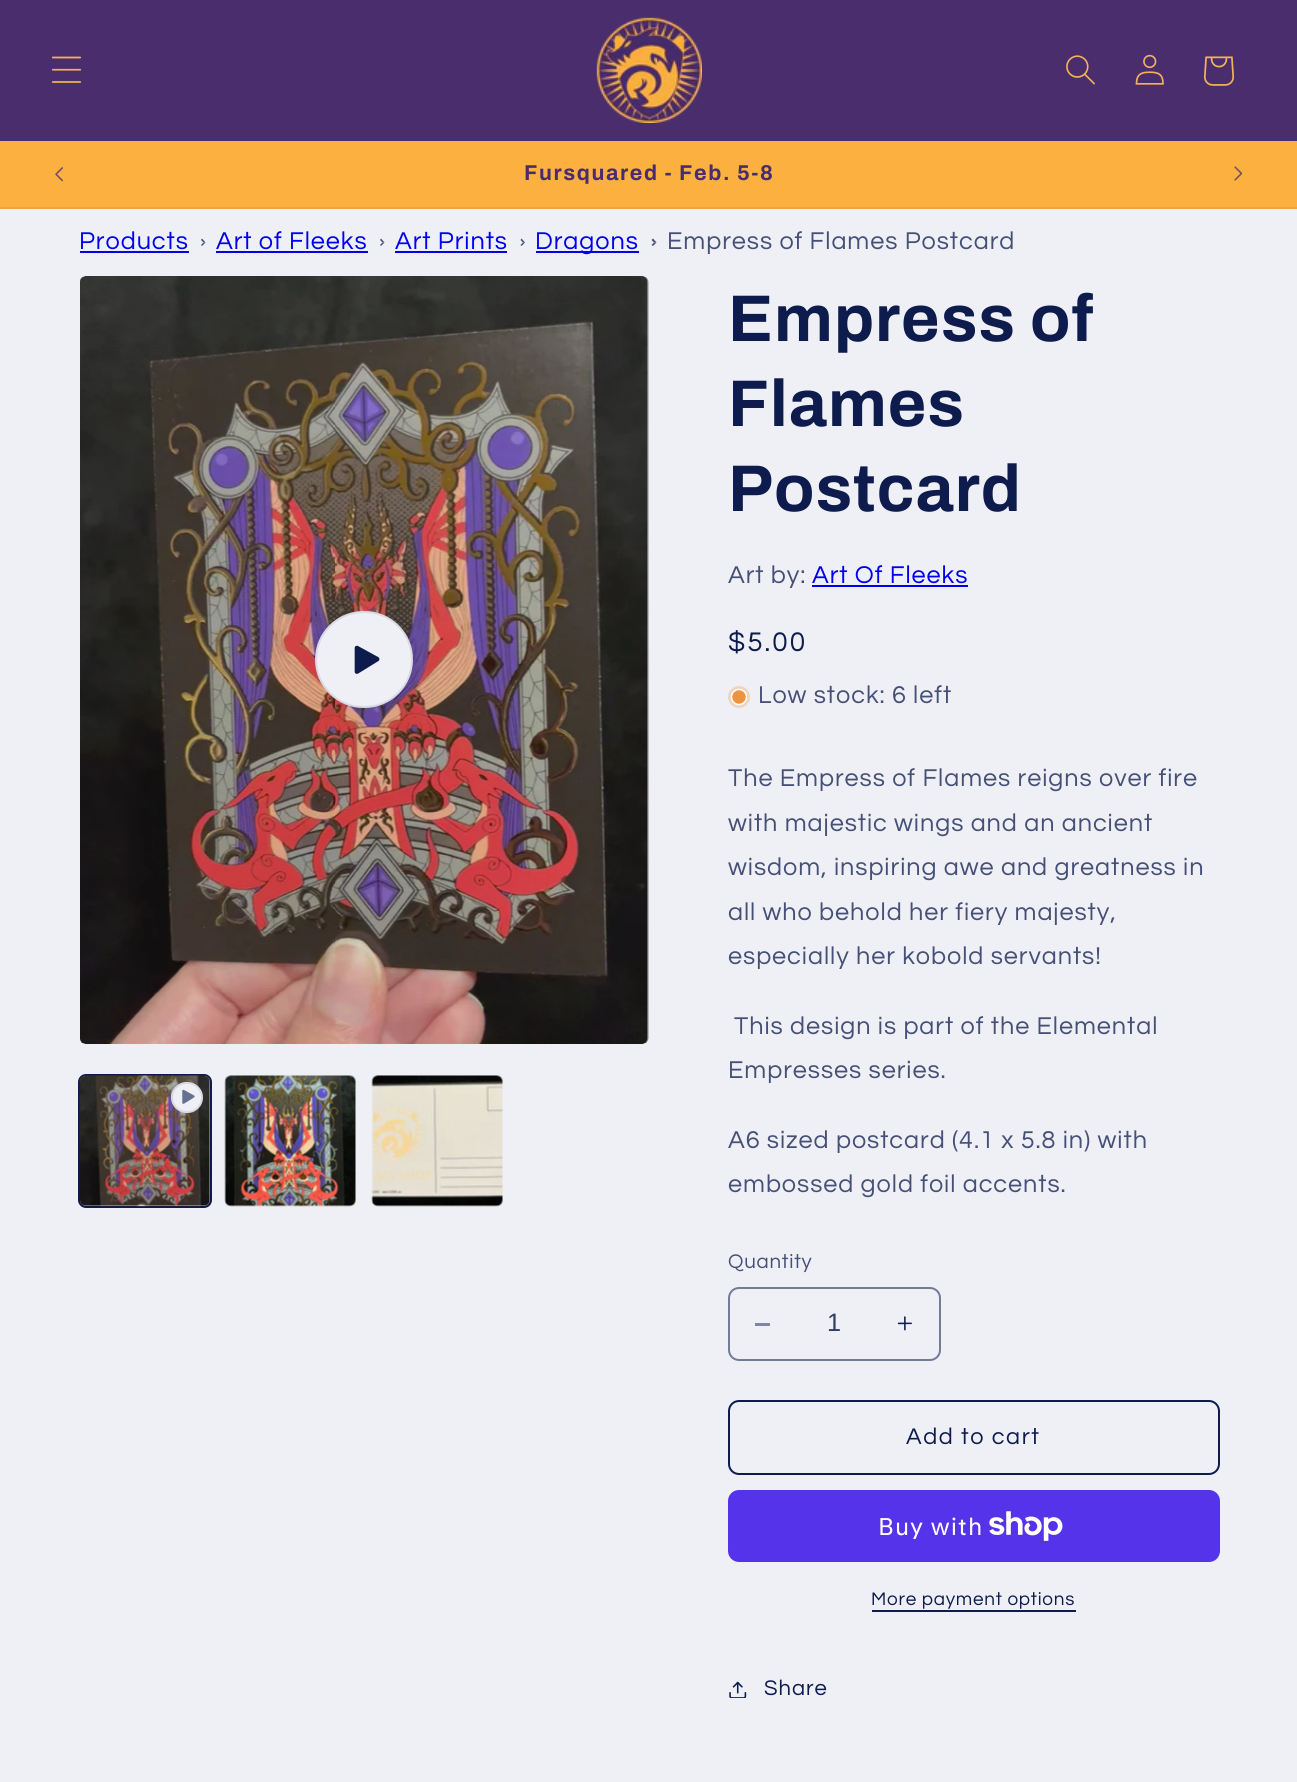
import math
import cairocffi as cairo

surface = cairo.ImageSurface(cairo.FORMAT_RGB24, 1297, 1782)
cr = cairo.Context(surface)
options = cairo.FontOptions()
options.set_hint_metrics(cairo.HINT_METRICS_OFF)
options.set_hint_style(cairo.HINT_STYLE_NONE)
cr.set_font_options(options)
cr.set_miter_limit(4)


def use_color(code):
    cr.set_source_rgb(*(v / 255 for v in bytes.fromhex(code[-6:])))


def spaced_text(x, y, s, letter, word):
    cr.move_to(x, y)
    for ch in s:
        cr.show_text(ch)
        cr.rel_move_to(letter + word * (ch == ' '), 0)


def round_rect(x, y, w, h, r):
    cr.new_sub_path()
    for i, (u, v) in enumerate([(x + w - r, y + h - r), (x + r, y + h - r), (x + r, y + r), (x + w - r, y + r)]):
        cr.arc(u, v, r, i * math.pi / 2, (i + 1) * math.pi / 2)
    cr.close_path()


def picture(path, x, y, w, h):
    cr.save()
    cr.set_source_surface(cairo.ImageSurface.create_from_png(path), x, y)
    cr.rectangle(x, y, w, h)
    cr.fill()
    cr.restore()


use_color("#eff0f5")
cr.paint()
use_color("#492d6c")
cr.rectangle(0, 0, 1297, 141)
cr.fill()
picture("img1.png", 51, 56, 31, 27)
picture("img2.png", 596, 17, 106, 106)
picture("img3.png", 1066, 55, 29, 30)
picture("img4.png", 1135, 54, 29, 31)
picture("img5.png", 1204, 56, 30, 30)
use_color("#fbb040")
cr.rectangle(0, 141, 1297, 66)
cr.fill()
use_color("#eda644")
cr.rectangle(0, 207, 1297, 2)
cr.fill()
picture("img6.png", 55, 167, 8, 15)
cr.select_font_face("Archivo", cairo.FONT_SLANT_NORMAL, cairo.FONT_WEIGHT_BOLD)
cr.set_font_size(21.5)
use_color("#492d6c")
spaced_text(524, 180, "Fursquared - Feb. 5-8", 1.6, 0)
picture("img7.png", 1234, 166, 9, 15)
cr.select_font_face("Questrial")
cr.set_font_size(25.25)
use_color("#0000ee")
spaced_text(79, 249, "Products", 0.95, 0)
cr.rectangle(80, 251, 109, 2)
cr.fill()
use_color("#465077")
cr.new_path()
cr.move_to(202, 238.5)
cr.line_to(205.5, 242.5)
cr.line_to(203.5, 242.5)
cr.line_to(201, 240)
cr.close_path()
cr.fill()
cr.new_path()
cr.move_to(205.5, 242.5)
cr.line_to(202, 246)
cr.line_to(201, 245)
cr.line_to(203.5, 242.5)
cr.close_path()
cr.fill()
use_color("#0000ee")
spaced_text(216, 249, "Art of Fleeks", 0.95, 0)
cr.rectangle(216, 251, 152, 2)
cr.fill()
use_color("#465077")
cr.new_path()
cr.move_to(381, 238.5)
cr.line_to(384.5, 242.5)
cr.line_to(382.5, 242.5)
cr.line_to(380, 240)
cr.close_path()
cr.fill()
cr.new_path()
cr.move_to(384.5, 242.5)
cr.line_to(381, 246)
cr.line_to(380, 245)
cr.line_to(382.5, 242.5)
cr.close_path()
cr.fill()
use_color("#0000ee")
spaced_text(395, 249, "Art Prints", 0.95, 0)
cr.rectangle(395, 251, 112, 2)
cr.fill()
use_color("#465077")
cr.new_path()
cr.move_to(521.5, 238.5)
cr.line_to(525, 242.5)
cr.line_to(523, 242.5)
cr.line_to(520.5, 240)
cr.close_path()
cr.fill()
cr.set_source_rgba(0.055, 0.106, 0.302, 0.75)
cr.new_path()
cr.move_to(525, 242.5)
cr.line_to(521.5, 246)
cr.line_to(520.5, 245)
cr.line_to(523, 242.5)
cr.close_path()
cr.fill()
use_color("#0000ee")
cr.rectangle(536, 251, 103, 2)
cr.fill()
spaced_text(535, 249, "Dragons", 0.95, 0)
use_color("#465077")
cr.new_path()
cr.move_to(653, 238.5)
cr.line_to(656.5, 242.5)
cr.line_to(654, 242.5)
cr.line_to(651.5, 240)
cr.close_path()
cr.fill()
cr.new_path()
cr.move_to(656.5, 242.5)
cr.line_to(653, 246)
cr.line_to(651.5, 245)
cr.line_to(654, 242.5)
cr.close_path()
cr.fill()
spaced_text(667, 249, "Empress of Flames Postcard", 0.95, 0)
picture("img8.png", 80, 276, 569, 768)
use_color("#eff0f5")
round_rect(315, 611, 98, 97, 48.5)
cr.fill()
round_rect(316, 612, 96, 95, 47.5)
cr.set_source_rgba(0.055, 0.106, 0.302, 0.1)
cr.stroke()
picture("img9.png", 354, 645, 26, 29)
round_rect(79, 1075, 132, 132, 7)
use_color("#0e1b4d")
cr.stroke()
picture("img10.png", 79, 1075, 132, 132)
use_color("#eff0f5")
round_rect(171, 1082, 32, 31, 15.5)
cr.fill()
round_rect(172, 1083, 30, 29, 14.5)
cr.set_source_rgba(0.055, 0.106, 0.302, 0.1)
cr.stroke()
picture("img11.png", 182, 1089, 13, 15)
picture("img12.png", 224, 1075, 132, 132)
picture("img13.png", 371, 1075, 132, 132)
cr.select_font_face("Archivo", cairo.FONT_SLANT_NORMAL, cairo.FONT_WEIGHT_BOLD)
cr.set_font_size(66)
use_color("#0e1b4d")
spaced_text(728, 341, "Empress of", 1, 0)
spaced_text(728, 426, "Flames", 1, 0)
spaced_text(728, 511, "Postcard", 1, 0)
cr.select_font_face("Questrial")
cr.set_font_size(25.25)
use_color("#465077")
spaced_text(728, 583, "Art by:", 0.95, 0)
use_color("#0000ee")
spaced_text(812, 583, "Art Of Fleeks", 0.95, 0)
cr.rectangle(812, 585, 156, 2)
cr.fill()
cr.set_font_size(28)
use_color("#0e1b4d")
spaced_text(728, 651, "$5.00", 2, 0)
use_color("#efd4bf")
cr.new_path()
cr.arc(739, 697, 11, 0, 2 * math.pi)
cr.fill()
use_color("#ee9441")
cr.arc(739, 697, 7.5, 0, 2 * math.pi)
cr.fill_preserve()
use_color("#ffffff")
cr.set_line_width(1.5)
cr.stroke()
cr.set_font_size(25.25)
use_color("#465077")
spaced_text(758, 703, "Low stock: 6 left", 0.95, 0)
spaced_text(728, 786, "The Empress of Flames reigns over fire", 0.95, 0)
spaced_text(728, 831, "with majestic wings and an ancient", 0.95, 0)
spaced_text(728, 875, "wisdom, inspiring awe and greatness in", 0.95, 0)
spaced_text(728, 920, "all who behold her fiery majesty,", 0.95, 0)
spaced_text(728, 964, "especially her kobold servants!", 0.95, 0)
spaced_text(734, 1034, "This design is part of the Elemental", 0.95, 0)
spaced_text(728, 1078, "Empresses series.", 0.95, 0)
spaced_text(728, 1148, "A6 sized postcard (4.1 x 5.8 in) with", 0.95, 0)
spaced_text(728, 1192, "embossed gold foil accents.", 0.95, 0)
cr.set_font_size(20.5)
spaced_text(728, 1268, "Quantity", 0.75, 0)
use_color("#7f86a1")
cr.rectangle(755, 1323, 15, 3)
cr.fill()
picture("img14.png", 897, 1316, 15, 15)
round_rect(729, 1288, 211, 72, 10)
use_color("#737b99")
cr.set_line_width(2)
cr.stroke()
cr.select_font_face("Liberation Sans")
cr.set_font_size(25.25)
use_color("#303b66")
cr.move_to(827, 1331)
cr.show_text("1")
round_rect(729, 1401, 490, 73, 10)
use_color("#0e1b4d")
cr.stroke()
cr.select_font_face("Questrial")
cr.set_font_size(23.5)
spaced_text(906, 1444, "Add to cart", 1.6, 0)
use_color("#5433eb")
round_rect(728, 1490, 492, 72, 11)
cr.fill()
cr.select_font_face("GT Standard")
cr.set_font_size(24)
use_color("#ffffff")
spaced_text(878, 1535, "Buy with", 0.95, 0)
picture("img15.png", 989, 1511, 74, 30)
cr.select_font_face("Questrial")
cr.set_font_size(18.9)
use_color("#0e1b4d")
spaced_text(871, 1605, "More payment options", 0.75, 0)
cr.rectangle(872, 1610, 204, 2)
cr.fill()
picture("img16.png", 729, 1681, 18, 17)
cr.set_font_size(22)
spaced_text(764, 1695, "Share", 0.95, 0)
surface.write_to_png("result.png")
